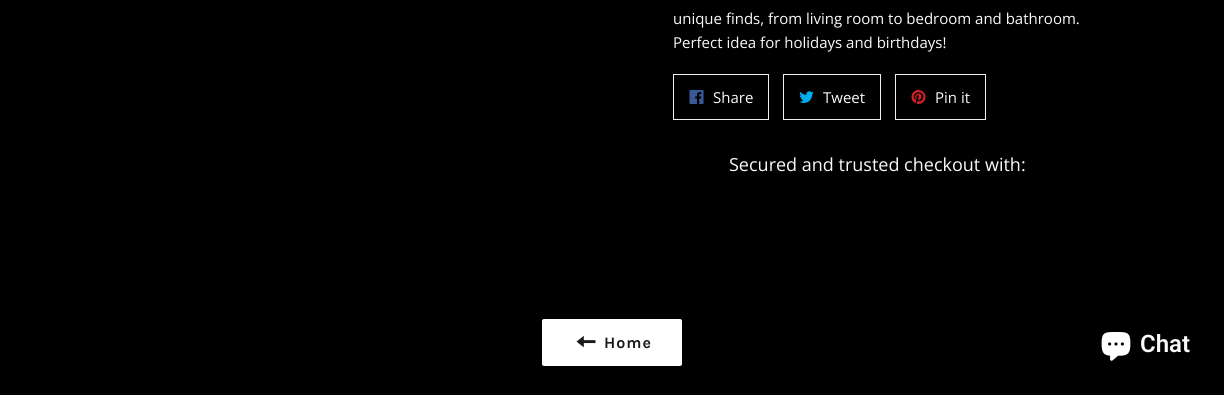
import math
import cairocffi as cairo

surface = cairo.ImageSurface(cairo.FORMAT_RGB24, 1224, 395)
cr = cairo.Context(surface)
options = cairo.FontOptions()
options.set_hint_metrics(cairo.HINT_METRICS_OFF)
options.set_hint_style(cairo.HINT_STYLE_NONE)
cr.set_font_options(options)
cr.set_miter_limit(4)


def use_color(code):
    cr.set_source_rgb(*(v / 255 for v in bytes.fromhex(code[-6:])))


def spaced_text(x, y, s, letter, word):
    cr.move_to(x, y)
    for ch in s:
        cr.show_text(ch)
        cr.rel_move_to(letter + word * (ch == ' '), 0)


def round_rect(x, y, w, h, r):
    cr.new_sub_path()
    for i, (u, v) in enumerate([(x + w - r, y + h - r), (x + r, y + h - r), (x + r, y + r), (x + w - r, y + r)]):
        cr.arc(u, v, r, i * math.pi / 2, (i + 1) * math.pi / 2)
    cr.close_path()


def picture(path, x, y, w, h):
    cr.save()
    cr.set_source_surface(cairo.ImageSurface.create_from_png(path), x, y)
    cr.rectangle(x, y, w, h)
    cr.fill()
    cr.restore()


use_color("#000000")
cr.paint()
cr.select_font_face("Open Sans")
cr.set_font_size(15)
use_color("#fafafa")
cr.move_to(673, 24)
cr.show_text("unique finds, from living room to bedroom and bathroom.")
cr.move_to(673, 48)
cr.show_text("Perfect idea for holidays and birthdays!")
cr.rectangle(673.5, 74.5, 95, 45)
use_color("#eeeeee")
cr.set_line_width(1)
cr.stroke()
picture("img1.png", 689, 90, 15, 14)
use_color("#fafafa")
cr.move_to(713, 103)
cr.show_text("Share")
cr.rectangle(783.5, 74.5, 97, 45)
use_color("#eeeeee")
cr.stroke()
picture("img2.png", 799, 91, 15, 12)
use_color("#fafafa")
cr.move_to(823, 103)
cr.show_text("Tweet")
cr.rectangle(895.5, 74.5, 90, 45)
use_color("#eeeeee")
cr.stroke()
picture("img3.png", 911, 90, 15, 14)
use_color("#fafafa")
cr.move_to(935, 103)
cr.show_text("Pin it")
cr.set_font_size(18)
cr.move_to(729, 171)
cr.show_text("Secured and trusted checkout with:")
use_color("#ffffff")
round_rect(542, 319, 140, 47, 2)
cr.fill()
picture("img4.png", 576, 335, 20, 13)
cr.select_font_face("Karla", cairo.FONT_SLANT_NORMAL, cairo.FONT_WEIGHT_BOLD)
cr.set_font_size(16)
use_color("#1a1a1a")
spaced_text(604, 348, "Home", 1, 0)
picture("img5.png", 1101, 332, 30, 29)
cr.select_font_face("Roboto SemiBold")
cr.set_font_size(24)
use_color("#fafafa")
cr.move_to(1140, 352)
cr.show_text("Chat")
surface.write_to_png("result.png")
